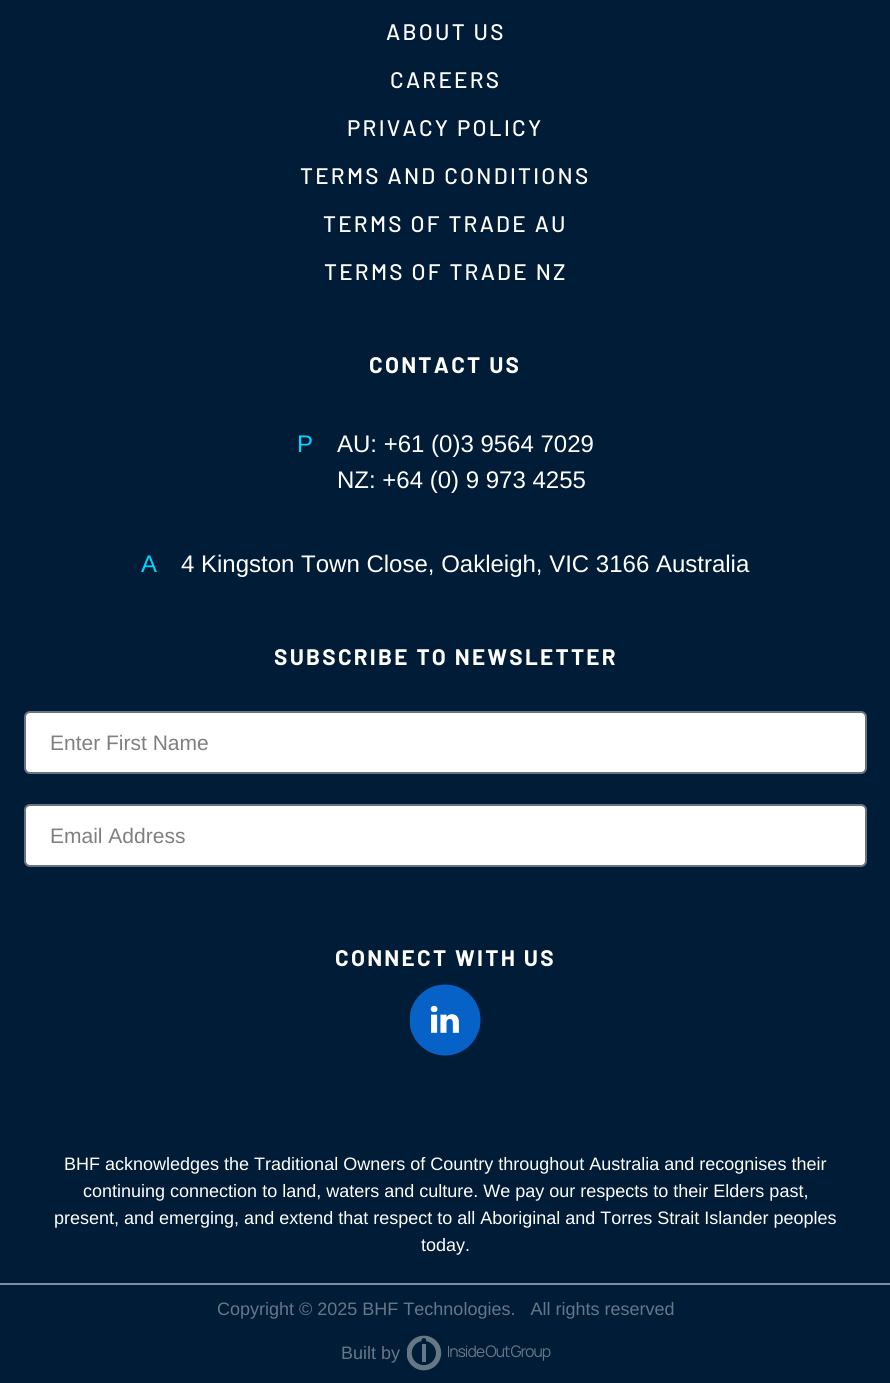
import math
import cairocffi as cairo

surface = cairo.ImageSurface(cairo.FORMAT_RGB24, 890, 1383)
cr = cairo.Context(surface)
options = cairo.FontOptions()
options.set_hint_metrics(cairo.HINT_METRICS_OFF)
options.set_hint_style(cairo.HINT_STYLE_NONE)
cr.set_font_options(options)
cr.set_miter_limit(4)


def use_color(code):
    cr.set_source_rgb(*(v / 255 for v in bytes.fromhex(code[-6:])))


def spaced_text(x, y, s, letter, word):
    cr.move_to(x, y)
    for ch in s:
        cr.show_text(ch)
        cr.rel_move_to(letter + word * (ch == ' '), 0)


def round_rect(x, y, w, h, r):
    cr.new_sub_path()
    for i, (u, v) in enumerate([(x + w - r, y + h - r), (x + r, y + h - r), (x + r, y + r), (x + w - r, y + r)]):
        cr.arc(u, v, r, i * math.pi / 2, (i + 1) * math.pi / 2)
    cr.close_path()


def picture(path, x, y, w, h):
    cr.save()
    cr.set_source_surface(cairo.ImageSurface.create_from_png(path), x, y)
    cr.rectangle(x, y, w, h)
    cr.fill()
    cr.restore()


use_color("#001c36")
cr.paint()
cr.select_font_face("Barlow Medium")
cr.set_font_size(22.5)
use_color("#ffffff")
spaced_text(386, 40, "ABOUT US", 2.25, 0)
spaced_text(390, 88, "CAREERS", 2.25, 0)
spaced_text(347, 136, "PRIVACY POLICY", 2.25, 0)
spaced_text(300, 184, "TERMS AND CONDITIONS", 2.25, 0)
spaced_text(323, 232, "TERMS OF TRADE AU", 2.25, 0)
spaced_text(324, 280, "TERMS OF TRADE NZ", 2.25, 0)
cr.select_font_face("Barlow", cairo.FONT_SLANT_NORMAL, cairo.FONT_WEIGHT_BOLD)
spaced_text(369, 373, "CONTACT US", 2.25, 0)
cr.select_font_face("Liberation Sans")
cr.set_font_size(24)
use_color("#00d6ff")
cr.move_to(297, 452)
cr.show_text("P")
use_color("#ffffff")
cr.move_to(337, 452)
cr.show_text("AU: +61 (0)3 9564 7029")
cr.move_to(337, 488)
cr.show_text("NZ: +64 (0) 9 973 4255")
use_color("#00d6ff")
cr.move_to(141, 572)
cr.show_text("A")
use_color("#ffffff")
cr.move_to(181, 572)
cr.show_text("4 Kingston Town Close, Oakleigh, VIC 3166 Australia")
cr.select_font_face("Barlow", cairo.FONT_SLANT_NORMAL, cairo.FONT_WEIGHT_BOLD)
cr.set_font_size(22.5)
spaced_text(274, 665, "SUBSCRIBE TO NEWSLETTER", 2.25, 0)
round_rect(25, 712, 841, 61, 5)
cr.fill_preserve()
use_color("#6b7280")
cr.stroke()
cr.select_font_face("Liberation Sans")
cr.set_font_size(21)
use_color("#7f7f7f")
cr.move_to(50, 750)
cr.show_text("Enter First Name")
use_color("#ffffff")
round_rect(25, 805, 841, 61, 5)
cr.fill_preserve()
use_color("#6b7280")
cr.stroke()
use_color("#7f7f7f")
cr.move_to(50, 843)
cr.show_text("Email Address")
cr.select_font_face("Barlow", cairo.FONT_SLANT_NORMAL, cairo.FONT_WEIGHT_BOLD)
cr.set_font_size(22.5)
use_color("#ffffff")
spaced_text(335, 966, "CONNECT WITH US", 2.25, 0)
picture("img1.png", 410, 984, 71, 72)
cr.select_font_face("Liberation Sans")
cr.set_font_size(18)
cr.move_to(64, 1170)
cr.show_text("BHF acknowledges the Traditional Owners of Country throughout Australia and recognises their")
cr.move_to(83, 1197)
cr.show_text("continuing connection to land, waters and culture. We pay our respects to their Elders past,")
cr.move_to(54, 1224)
cr.show_text("present, and emerging, and extend that respect to all Aboriginal and Torres Strait Islander peoples")
cr.move_to(421, 1251)
cr.show_text("today.")
use_color("#808e9b")
cr.rectangle(0, 1283, 890, 2)
cr.fill()
use_color("#667786")
cr.move_to(217, 1315)
cr.show_text("Copyright © 2025 BHF Technologies.   All rights reserved")
cr.move_to(341, 1359)
cr.show_text("Built by")
picture("img2.png", 407, 1335, 144, 36)
surface.write_to_png("result.png")
